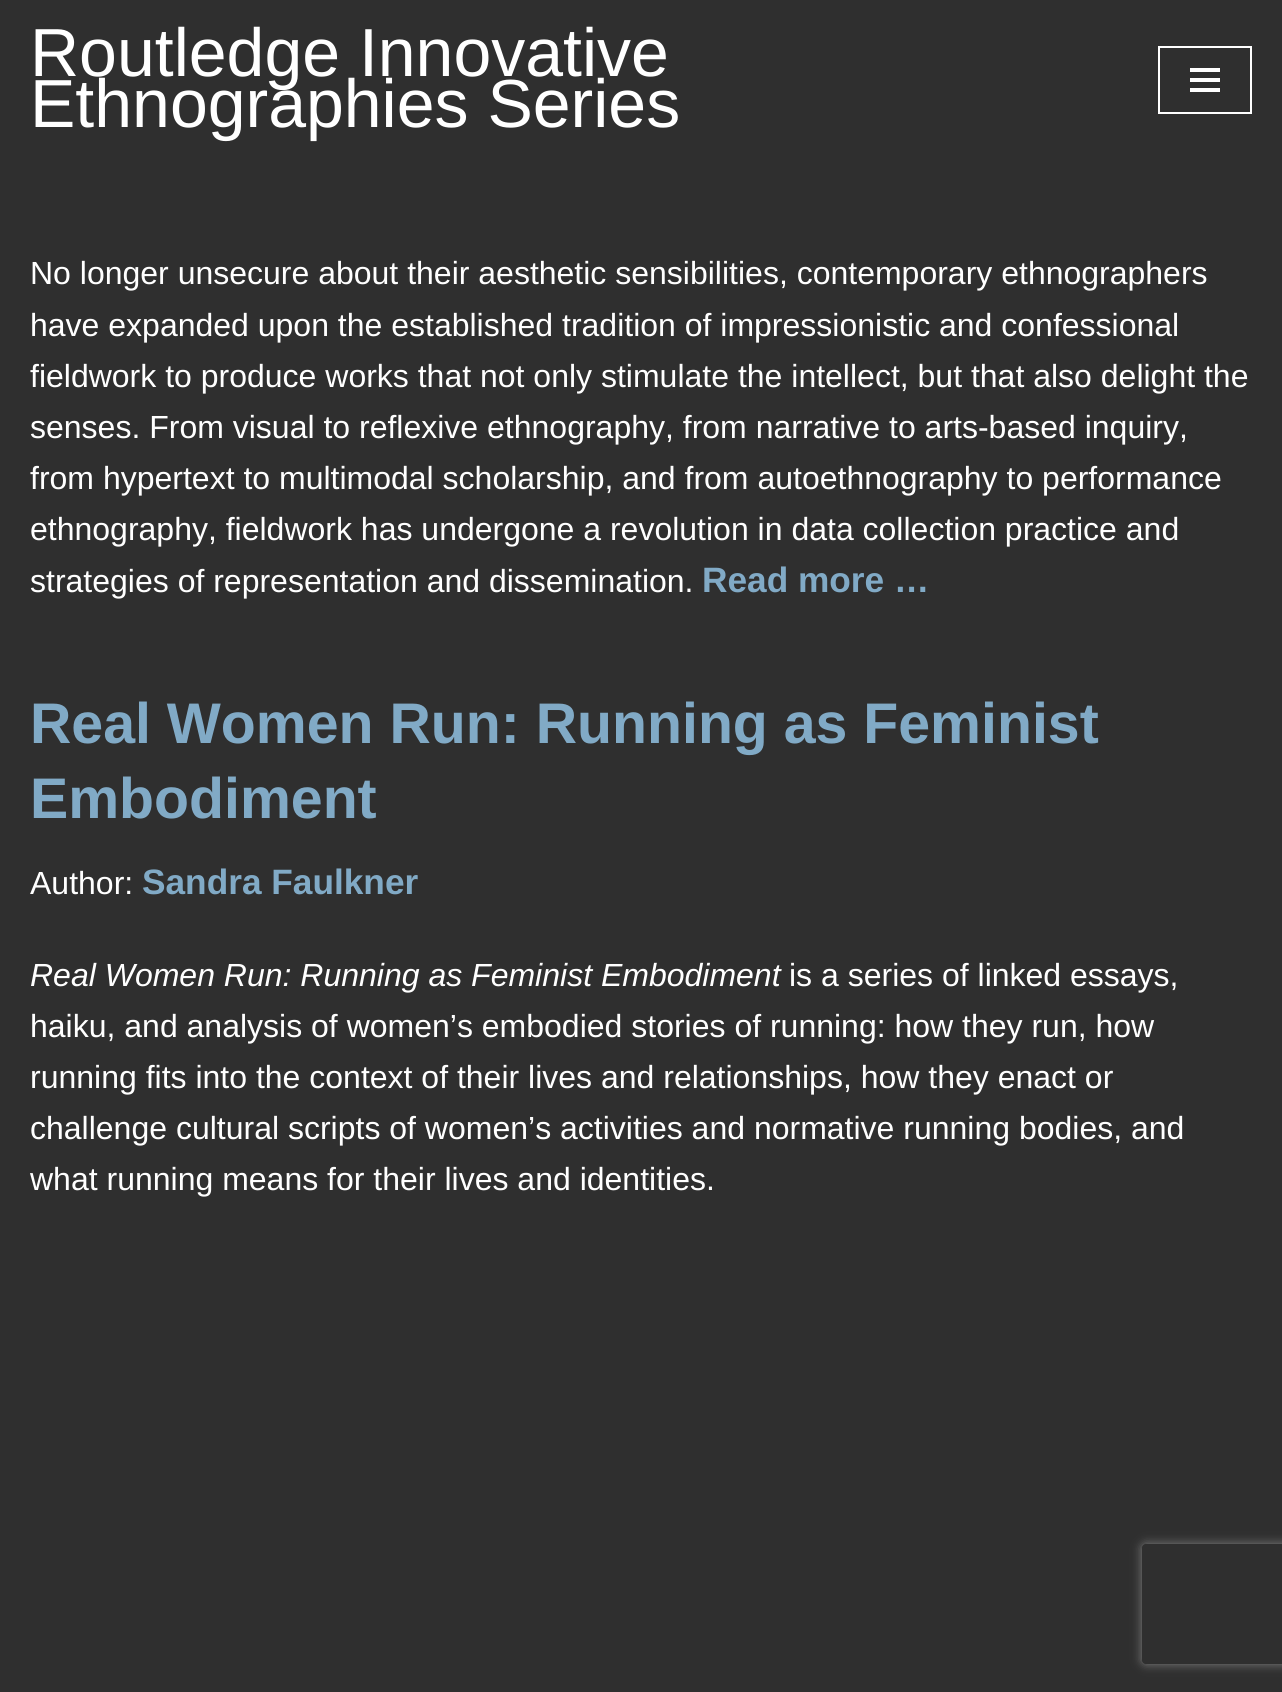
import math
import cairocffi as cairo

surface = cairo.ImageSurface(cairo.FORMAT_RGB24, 1282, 1692)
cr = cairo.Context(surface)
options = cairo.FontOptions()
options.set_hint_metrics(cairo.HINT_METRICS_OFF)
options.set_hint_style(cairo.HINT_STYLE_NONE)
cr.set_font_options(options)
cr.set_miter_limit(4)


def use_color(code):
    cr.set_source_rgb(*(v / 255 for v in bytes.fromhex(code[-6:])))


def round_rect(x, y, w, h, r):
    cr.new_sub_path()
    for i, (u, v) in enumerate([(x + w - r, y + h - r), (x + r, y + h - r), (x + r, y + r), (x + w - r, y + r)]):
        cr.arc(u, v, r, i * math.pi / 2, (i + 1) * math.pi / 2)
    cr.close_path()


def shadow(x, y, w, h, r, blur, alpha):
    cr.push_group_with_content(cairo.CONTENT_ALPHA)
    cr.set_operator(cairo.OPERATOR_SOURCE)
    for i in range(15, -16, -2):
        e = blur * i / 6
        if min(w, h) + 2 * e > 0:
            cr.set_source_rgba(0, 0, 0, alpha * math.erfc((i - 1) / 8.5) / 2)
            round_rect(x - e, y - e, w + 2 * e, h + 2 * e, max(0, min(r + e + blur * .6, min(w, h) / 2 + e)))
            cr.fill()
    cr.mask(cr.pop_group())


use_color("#2f2f2f")
cr.paint()
cr.select_font_face("Liberation Sans")
cr.set_font_size(68)
use_color("#ffffff")
cr.move_to(30, 76)
cr.show_text("Routledge Innovative")
cr.move_to(30, 127)
cr.show_text("Ethnographies Series")
cr.rectangle(1159, 47, 92, 66)
cr.stroke()
cr.rectangle(1190, 68, 30, 4)
cr.fill()
cr.rectangle(1190, 78, 30, 4)
cr.fill()
cr.rectangle(1190, 88, 30, 4)
cr.fill()
cr.set_font_size(32)
cr.move_to(30, 284)
cr.show_text("No longer unsecure about their aesthetic sensibilities, contemporary ethnographers")
cr.move_to(30, 336)
cr.show_text("have expanded upon the established tradition of impressionistic and confessional")
cr.move_to(30, 387)
cr.show_text("fieldwork to produce works that not only stimulate the intellect, but that also delight the")
cr.move_to(30, 438)
cr.show_text("senses. From visual to reflexive ethnography, from narrative to arts-based inquiry,")
cr.move_to(30, 489)
cr.show_text("from hypertext to multimodal scholarship, and from autoethnography to performance")
cr.move_to(30, 540)
cr.show_text("ethnography, fieldwork has undergone a revolution in data collection practice and")
cr.move_to(30, 592)
cr.show_text("strategies of representation and dissemination.")
cr.select_font_face("Liberation Sans", cairo.FONT_SLANT_NORMAL, cairo.FONT_WEIGHT_BOLD)
cr.set_font_size(35.25)
use_color("#81aac6")
cr.move_to(702, 592)
cr.show_text("Read more …")
cr.set_font_size(57.25)
cr.move_to(30, 743)
cr.show_text("Real Women Run: Running as Feminist")
cr.move_to(30, 818)
cr.show_text("Embodiment")
cr.select_font_face("Liberation Sans")
cr.set_font_size(32)
use_color("#ffffff")
cr.move_to(30, 894)
cr.show_text("Author:")
cr.select_font_face("Liberation Sans", cairo.FONT_SLANT_NORMAL, cairo.FONT_WEIGHT_BOLD)
cr.set_font_size(35.25)
use_color("#81aac6")
cr.move_to(142, 894)
cr.show_text("Sandra Faulkner")
cr.select_font_face("Liberation Sans", cairo.FONT_SLANT_ITALIC)
cr.set_font_size(32)
use_color("#ffffff")
cr.move_to(30, 986)
cr.show_text("Real Women Run: Running as Feminist Embodiment")
cr.select_font_face("Liberation Sans")
cr.move_to(789, 986)
cr.show_text("is a series of linked essays,")
cr.move_to(30, 1037)
cr.show_text("haiku, and analysis of women’s embodied stories of running: how they run, how")
cr.move_to(30, 1088)
cr.show_text("running fits into the context of their lives and relationships, how they enact or")
cr.move_to(30, 1139)
cr.show_text("challenge cultural scripts of women’s activities and normative running bodies, and")
cr.move_to(30, 1190)
cr.show_text("what running means for their lives and identities.")
cr.save()
cr.set_fill_rule(cairo.FILL_RULE_EVEN_ODD)
cr.new_path()
cr.move_to(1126, 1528)
cr.line_to(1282, 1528)
cr.line_to(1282, 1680)
cr.line_to(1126, 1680)
cr.close_path()
cr.move_to(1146, 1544)
cr.line_to(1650, 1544)
cr.curve_to(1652, 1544, 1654, 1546, 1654, 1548)
cr.line_to(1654, 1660)
cr.curve_to(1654, 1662, 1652, 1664, 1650, 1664)
cr.line_to(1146, 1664)
cr.curve_to(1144, 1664, 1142, 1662, 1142, 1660)
cr.line_to(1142, 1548)
cr.curve_to(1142, 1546, 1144, 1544, 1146, 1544)
cr.close_path()
cr.clip()
use_color("#808080")
shadow(1142, 1544, 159, 120, 4, 5, 1)
cr.restore()
surface.write_to_png("result.png")
